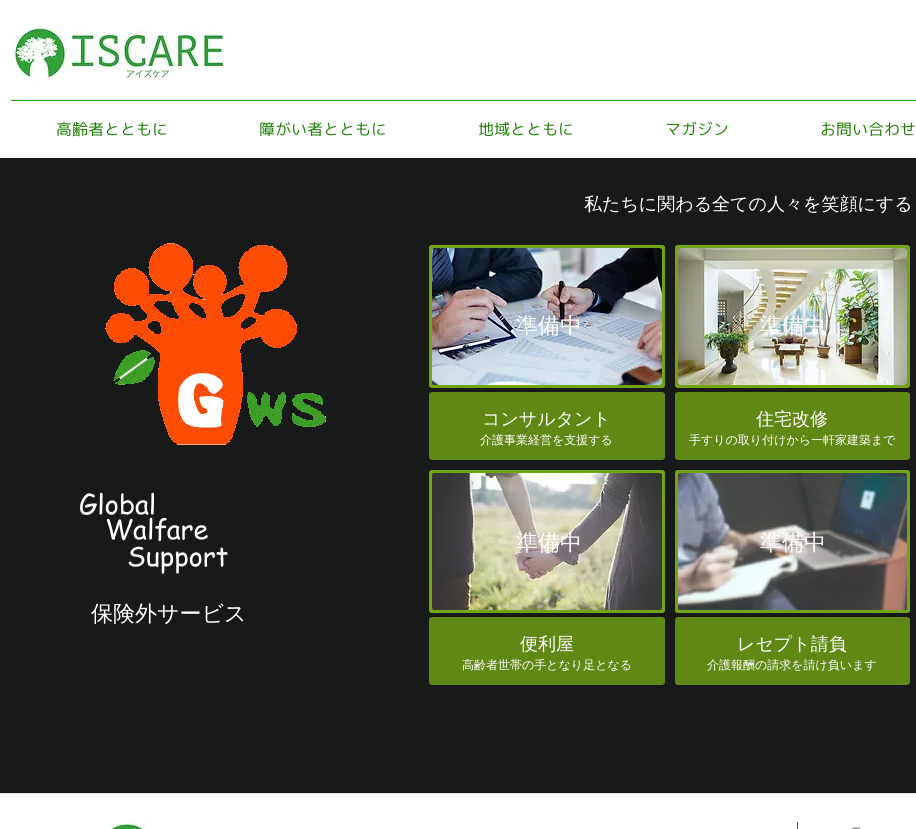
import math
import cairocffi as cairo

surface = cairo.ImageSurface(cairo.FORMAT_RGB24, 916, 829)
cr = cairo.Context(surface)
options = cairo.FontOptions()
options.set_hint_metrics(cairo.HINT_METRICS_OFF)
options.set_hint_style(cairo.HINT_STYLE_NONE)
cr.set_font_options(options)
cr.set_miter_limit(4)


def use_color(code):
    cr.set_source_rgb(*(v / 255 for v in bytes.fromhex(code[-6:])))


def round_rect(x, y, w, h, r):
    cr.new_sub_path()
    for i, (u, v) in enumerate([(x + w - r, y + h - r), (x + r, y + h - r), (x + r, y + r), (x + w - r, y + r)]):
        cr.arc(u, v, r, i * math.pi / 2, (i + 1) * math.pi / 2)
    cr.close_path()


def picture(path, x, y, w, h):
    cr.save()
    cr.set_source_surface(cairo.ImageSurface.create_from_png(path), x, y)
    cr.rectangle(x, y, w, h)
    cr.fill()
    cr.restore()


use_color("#ffffff")
cr.paint()
picture("img1.png", 11, 28, 216, 56)
use_color("#28a808")
cr.rectangle(11, 100, 905, 1)
cr.fill()
cr.select_font_face("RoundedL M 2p")
cr.set_font_size(16)
use_color("#208008")
cr.move_to(56, 135)
cr.show_text("高齢者とともに")
cr.move_to(259, 135)
cr.show_text("障がい者とともに")
cr.move_to(478, 135)
cr.show_text("地域とともに")
cr.move_to(665, 135)
cr.show_text("マガジン")
cr.move_to(820, 135)
cr.show_text("お問い合わせ")
use_color("#181919")
cr.rectangle(0, 158, 916, 635)
cr.fill()
cr.select_font_face("WenQuanYi Zen Hei Medium")
cr.set_font_size(18)
use_color("#ffffff")
cr.move_to(584, 210)
cr.show_text("私たちに関わる全ての人々を笑顔にする")
picture("img2.png", 105, 243, 221, 202)
use_color("#608815")
round_rect(429, 245, 236, 143, 3)
cr.fill()
round_rect(430.5, 246.5, 233, 140, 1.5)
cr.set_source_rgba(0.475, 0.686, 0.075, 0.74)
cr.set_line_width(3)
cr.stroke()
picture("img3.png", 432, 248, 230, 137)
cr.set_font_size(22)
use_color("#ffffff")
cr.move_to(516, 333)
cr.show_text("準備中")
use_color("#608815")
round_rect(675, 245, 235, 143, 3)
cr.fill()
round_rect(676.5, 246.5, 232, 140, 1.5)
cr.set_source_rgba(0.475, 0.686, 0.075, 0.74)
cr.stroke()
picture("img4.png", 678, 248, 229, 137)
use_color("#ffffff")
cr.move_to(760, 333)
cr.show_text("準備中")
use_color("#608815")
round_rect(429, 392, 236, 68, 3)
cr.fill()
cr.set_font_size(18)
use_color("#ffffff")
cr.move_to(482, 425)
cr.show_text("コンサルタント")
cr.set_font_size(12)
cr.move_to(480, 444)
cr.show_text("介護事業経営を支援する")
use_color("#608815")
round_rect(675, 392, 235, 68, 3)
cr.fill()
cr.set_font_size(18)
use_color("#ffffff")
cr.move_to(756, 425)
cr.show_text("住宅改修")
cr.set_font_size(12)
cr.move_to(689, 444)
cr.show_text("手すりの取り付けから一軒家建築まで")
use_color("#608815")
round_rect(429, 470, 236, 143, 3)
cr.fill()
round_rect(430.5, 471.5, 233, 140, 1.5)
cr.set_source_rgba(0.475, 0.686, 0.075, 0.74)
cr.stroke()
picture("img5.png", 432, 473, 230, 137)
use_color("#608815")
round_rect(429, 617, 236, 68, 3)
cr.fill()
cr.set_font_size(18)
use_color("#ffffff")
cr.move_to(520, 650)
cr.show_text("便利屋")
cr.save()
cr.rectangle(443, 657, 208, 14)
cr.clip()
cr.set_font_size(12)
cr.move_to(462, 669)
cr.show_text("高齢者世帯の手となり足となる")
cr.restore()
use_color("#608815")
round_rect(675, 470, 235, 143, 3)
cr.fill()
round_rect(676.5, 471.5, 232, 140, 1.5)
cr.set_source_rgba(0.475, 0.686, 0.075, 0.74)
cr.stroke()
picture("img6.png", 678, 473, 229, 137)
use_color("#608815")
round_rect(675, 617, 235, 68, 3)
cr.fill()
use_color("#ffffff")
cr.move_to(737, 650)
cr.show_text("レセプト請負")
cr.set_font_size(12)
cr.move_to(707, 669)
cr.show_text("介護報酬の請求を請け負います")
cr.set_font_size(22)
cr.move_to(516, 550)
cr.show_text("準備中")
cr.move_to(760, 550)
cr.show_text("準備中")
cr.select_font_face("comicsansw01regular")
cr.set_font_size(27)
cr.move_to(79, 514)
cr.show_text("Global")
cr.move_to(105, 539)
cr.show_text("Walfare")
cr.move_to(127, 566)
cr.show_text("Support")
cr.select_font_face("WenQuanYi Zen Hei Medium")
cr.set_font_size(22)
cr.move_to(91, 621)
cr.show_text("保険外サービス")
use_color("#e3e3e3")
cr.rectangle(0, 793, 916, 1)
cr.fill()
picture("img7.png", 109, 822, 42, 7)
use_color("#26800f")
cr.rectangle(797, 822, 1, 7)
cr.fill()
picture("img8.png", 851, 827, 10, 2)
surface.write_to_png("result.png")
